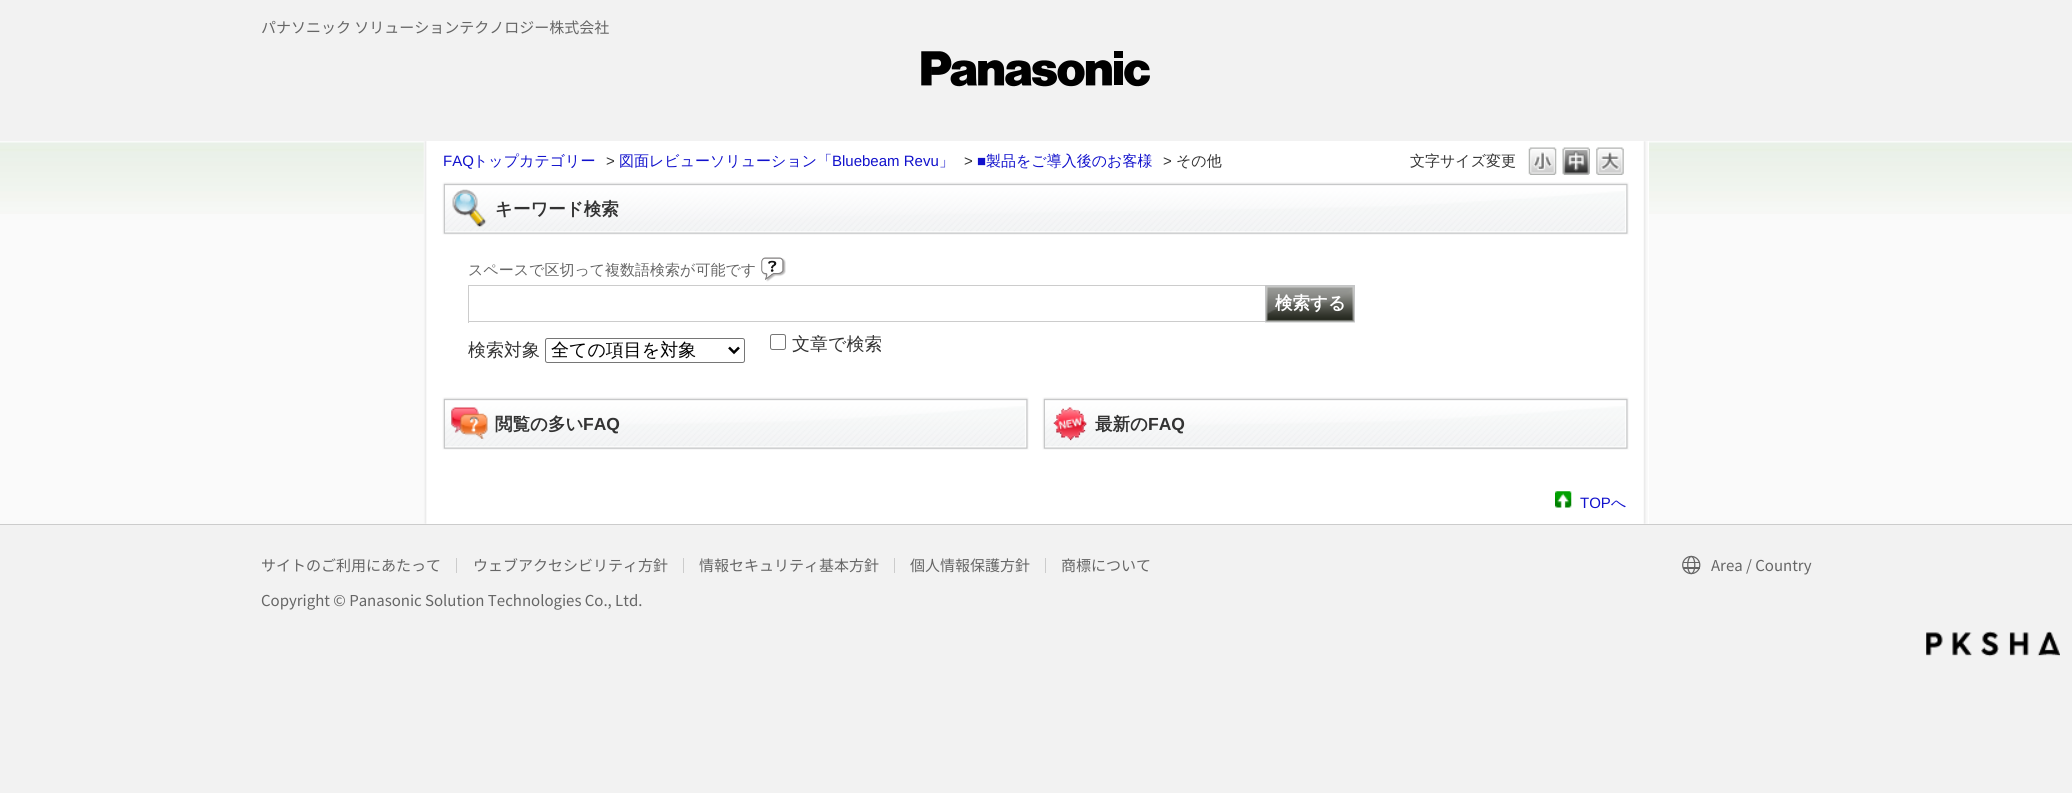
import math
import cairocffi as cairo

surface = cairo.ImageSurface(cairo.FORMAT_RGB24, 2072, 793)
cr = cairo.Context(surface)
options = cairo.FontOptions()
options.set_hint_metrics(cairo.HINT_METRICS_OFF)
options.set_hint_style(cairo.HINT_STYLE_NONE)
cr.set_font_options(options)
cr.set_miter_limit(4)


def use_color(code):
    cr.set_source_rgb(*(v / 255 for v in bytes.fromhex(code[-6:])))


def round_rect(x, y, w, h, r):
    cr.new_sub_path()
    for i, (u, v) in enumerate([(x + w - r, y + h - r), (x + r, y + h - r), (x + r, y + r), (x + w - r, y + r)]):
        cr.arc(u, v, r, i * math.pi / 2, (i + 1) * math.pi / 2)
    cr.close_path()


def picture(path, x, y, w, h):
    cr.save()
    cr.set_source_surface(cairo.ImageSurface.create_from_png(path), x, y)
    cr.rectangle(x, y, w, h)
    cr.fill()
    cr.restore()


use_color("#f2f2f2")
cr.paint()
cr.select_font_face("Noto Sans JP")
cr.set_font_size(15)
use_color("#666666")
cr.move_to(261, 33)
cr.show_text("パナソニック ソリューションテクノロジー株式会社")
picture("img1.png", 921, 51, 229, 36)
use_color("#fafafa")
cr.rectangle(0, 141, 2072, 383)
cr.fill()
picture("img2.png", 0, 142, 2072, 72)
use_color("#ffffff")
cr.rectangle(424, 141, 1225, 383)
cr.fill()
picture("img3.png", 1643, 141, 5, 383)
picture("img4.png", 423, 141, 4, 383)
cr.select_font_face("Liberation Sans")
use_color("#1111cc")
cr.move_to(443, 166)
cr.show_text("FAQ")
cr.select_font_face("WenQuanYi Zen Hei Medium")
cr.move_to(473, 166)
cr.show_text("トップカテゴリー")
cr.select_font_face("Liberation Sans")
use_color("#333333")
cr.move_to(606, 166)
cr.show_text(">")
cr.select_font_face("WenQuanYi Zen Hei Medium")
use_color("#1111cc")
cr.move_to(619, 166)
cr.show_text("図面レビューソリューション「")
cr.select_font_face("Liberation Sans")
cr.move_to(832, 166)
cr.show_text("Bluebeam Revu")
cr.select_font_face("WenQuanYi Zen Hei Medium")
cr.move_to(939, 166)
cr.show_text("」")
cr.select_font_face("Liberation Sans")
use_color("#333333")
cr.move_to(964, 166)
cr.show_text(">")
use_color("#1111cc")
cr.move_to(977, 166)
cr.show_text("■")
cr.select_font_face("WenQuanYi Zen Hei Medium")
cr.move_to(986, 166)
cr.show_text("製品をご導入後のお客様")
cr.select_font_face("Liberation Sans")
use_color("#333333")
cr.move_to(1163, 166)
cr.show_text(">")
cr.select_font_face("WenQuanYi Zen Hei Medium")
cr.move_to(1176, 166)
cr.show_text("その他")
cr.move_to(1410, 166)
cr.show_text("文字サイズ変更")
picture("img5.png", 1528, 147, 29, 28)
picture("img6.png", 1562, 147, 28, 28)
picture("img7.png", 1596, 147, 28, 28)
picture("img8.png", 442, 182, 3, 53)
picture("img9.png", 445, 182, 1184, 53)
picture("img10.png", 452, 189, 35, 38)
cr.select_font_face("WenQuanYi Zen Hei", cairo.FONT_SLANT_NORMAL, cairo.FONT_WEIGHT_BOLD)
cr.set_font_size(17.5)
cr.move_to(495, 215)
cr.show_text("キーワード検索")
cr.select_font_face("WenQuanYi Zen Hei Medium")
cr.set_font_size(15)
use_color("#666666")
cr.move_to(468, 275)
cr.show_text("スペースで区切って複数語検索が可能です")
picture("img11.png", 761, 257, 25, 25)
use_color("#cccccc")
cr.rectangle(468, 285, 797, 1)
cr.fill()
cr.rectangle(468, 321, 797, 1)
cr.fill()
cr.rectangle(468, 285, 1, 38)
cr.fill()
picture("img12.png", 1265, 285, 90, 38)
cr.select_font_face("WenQuanYi Zen Hei", cairo.FONT_SLANT_NORMAL, cairo.FONT_WEIGHT_BOLD)
cr.set_font_size(17.5)
use_color("#ffffff")
cr.move_to(1275, 309)
cr.show_text("検索する")
cr.select_font_face("WenQuanYi Zen Hei Medium")
cr.set_font_size(18)
use_color("#333333")
cr.move_to(468, 356)
cr.show_text("検索対象")
round_rect(545.5, 338.5, 199, 24, 2)
use_color("#767676")
cr.set_line_width(1)
cr.stroke()
cr.new_path()
cr.move_to(729, 347.5)
cr.line_to(734, 352.5)
cr.line_to(739, 347.5)
use_color("#000000")
cr.set_line_width(2.5)
cr.stroke()
cr.move_to(551, 356)
cr.show_text("全ての項目を対象")
round_rect(770.5, 334.5, 15, 15, 2)
use_color("#767676")
cr.set_line_width(1)
cr.stroke()
use_color("#333333")
cr.move_to(792, 350)
cr.show_text("文章で検索")
picture("img8.png", 442, 397, 3, 53)
picture("img13.png", 445, 397, 584, 53)
picture("img14.png", 451, 407, 37, 32)
cr.select_font_face("WenQuanYi Zen Hei", cairo.FONT_SLANT_NORMAL, cairo.FONT_WEIGHT_BOLD)
cr.set_font_size(17.5)
cr.move_to(495, 430)
cr.show_text("閲覧の多い")
cr.select_font_face("Liberation Sans", cairo.FONT_SLANT_NORMAL, cairo.FONT_WEIGHT_BOLD)
cr.move_to(583, 430)
cr.show_text("FAQ")
picture("img8.png", 1042, 397, 3, 53)
picture("img13.png", 1045, 397, 584, 53)
picture("img15.png", 1053, 407, 34, 34)
cr.select_font_face("WenQuanYi Zen Hei", cairo.FONT_SLANT_NORMAL, cairo.FONT_WEIGHT_BOLD)
cr.move_to(1095, 430)
cr.show_text("最新の")
cr.select_font_face("Liberation Sans", cairo.FONT_SLANT_NORMAL, cairo.FONT_WEIGHT_BOLD)
cr.move_to(1148, 430)
cr.show_text("FAQ")
picture("img16.png", 1555, 491, 17, 17)
cr.select_font_face("Liberation Sans")
cr.set_font_size(15)
use_color("#1111cc")
cr.move_to(1580, 508)
cr.show_text("TOP")
cr.select_font_face("WenQuanYi Zen Hei Medium")
cr.move_to(1611, 508)
cr.show_text("へ")
use_color("#cccccc")
cr.rectangle(0, 524, 2072, 1)
cr.fill()
cr.select_font_face("Noto Sans JP")
use_color("#666666")
cr.move_to(261, 571)
cr.show_text("サイトのご利用にあたって")
use_color("#cccccc")
cr.rectangle(456, 558, 1, 15)
cr.fill()
use_color("#666666")
cr.move_to(473, 571)
cr.show_text("ウェブアクセシビリティ方針")
use_color("#cccccc")
cr.rectangle(683, 558, 1, 15)
cr.fill()
use_color("#666666")
cr.move_to(699, 571)
cr.show_text("情報セキュリティ基本方針")
use_color("#cccccc")
cr.rectangle(894, 558, 1, 15)
cr.fill()
use_color("#666666")
cr.move_to(910, 571)
cr.show_text("個人情報保護方針")
use_color("#cccccc")
cr.rectangle(1045, 558, 1, 15)
cr.fill()
use_color("#666666")
cr.move_to(1061, 571)
cr.show_text("商標について")
picture("img17.png", 1682, 555, 19, 20)
cr.move_to(1711, 571)
cr.show_text("Area / Country")
cr.move_to(261, 606)
cr.show_text("Copyright © Panasonic Solution Technologies Co., Ltd.")
picture("img18.png", 1926, 631, 134, 26)
surface.write_to_png("result.png")
